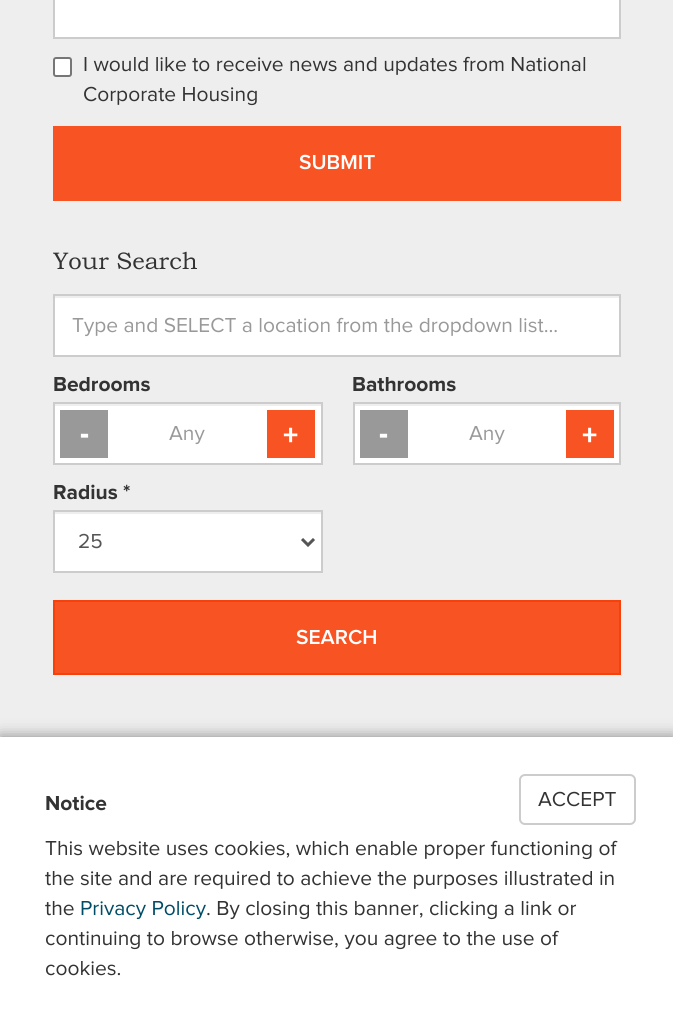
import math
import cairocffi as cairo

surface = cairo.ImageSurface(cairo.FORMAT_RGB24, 673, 1029)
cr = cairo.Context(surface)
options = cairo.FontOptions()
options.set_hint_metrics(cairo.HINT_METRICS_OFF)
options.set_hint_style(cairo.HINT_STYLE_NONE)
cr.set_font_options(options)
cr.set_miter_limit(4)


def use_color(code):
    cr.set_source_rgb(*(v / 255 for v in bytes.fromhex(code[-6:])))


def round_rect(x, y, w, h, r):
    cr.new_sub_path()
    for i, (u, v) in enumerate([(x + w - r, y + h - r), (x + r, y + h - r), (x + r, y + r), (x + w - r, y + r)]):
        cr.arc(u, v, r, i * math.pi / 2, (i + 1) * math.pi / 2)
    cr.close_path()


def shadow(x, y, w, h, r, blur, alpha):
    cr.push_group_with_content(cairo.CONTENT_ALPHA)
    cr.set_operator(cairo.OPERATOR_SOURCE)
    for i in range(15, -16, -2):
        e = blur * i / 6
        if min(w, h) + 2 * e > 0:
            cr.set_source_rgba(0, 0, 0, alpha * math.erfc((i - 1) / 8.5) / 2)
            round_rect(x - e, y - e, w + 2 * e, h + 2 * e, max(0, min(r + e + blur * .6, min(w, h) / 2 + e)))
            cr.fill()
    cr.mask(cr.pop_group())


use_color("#eeeeee")
cr.paint()
use_color("#ffffff")
cr.rectangle(54, -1, 566, 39)
cr.fill_preserve()
use_color("#cccccc")
cr.stroke()
use_color("#ffffff")
round_rect(54, 58, 17, 18, 2)
cr.fill_preserve()
use_color("#767676")
cr.stroke()
cr.select_font_face("Proxima Nova")
cr.set_font_size(21)
use_color("#333333")
cr.move_to(83, 71)
cr.show_text("I would like to receive news and updates from National")
cr.move_to(83, 101)
cr.show_text("Corporate Housing")
use_color("#f85323")
cr.rectangle(53, 126, 568, 75)
cr.fill()
cr.select_font_face("Proxima Nova SemiBold")
use_color("#ffffff")
cr.move_to(299, 169)
cr.show_text("SUBMIT")
cr.select_font_face("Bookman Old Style")
cr.set_font_size(24)
use_color("#333333")
cr.move_to(53, 269)
cr.show_text("Your Search")
use_color("#ffffff")
cr.rectangle(55, 298, 564, 57)
cr.fill()
cr.rectangle(54, 295, 566, 61)
use_color("#cccccc")
cr.stroke()
cr.select_font_face("Proxima Nova")
cr.set_font_size(21)
use_color("#999999")
cr.move_to(72, 332)
cr.show_text("Type and SELECT a location from the dropdown list...")
cr.select_font_face("Proxima Nova", cairo.FONT_SLANT_NORMAL, cairo.FONT_WEIGHT_BOLD)
use_color("#333333")
cr.move_to(53, 391)
cr.show_text("Bedrooms")
use_color("#ffffff")
cr.rectangle(55, 406, 266, 57)
cr.fill()
cr.rectangle(54, 403, 268, 61)
use_color("#cccccc")
cr.stroke()
use_color("#999999")
cr.rectangle(60, 410, 48, 48)
cr.fill()
cr.select_font_face("Proxima Nova ExtraBold")
cr.set_font_size(30)
use_color("#ffffff")
cr.move_to(80, 443)
cr.show_text("-")
cr.select_font_face("Proxima Nova")
cr.set_font_size(21)
use_color("#999999")
cr.move_to(169, 440)
cr.show_text("Any")
use_color("#f85323")
cr.rectangle(267, 410, 48, 48)
cr.fill()
cr.select_font_face("Proxima Nova ExtraBold")
cr.set_font_size(30)
use_color("#ffffff")
cr.move_to(283, 445)
cr.show_text("+")
cr.select_font_face("Proxima Nova", cairo.FONT_SLANT_NORMAL, cairo.FONT_WEIGHT_BOLD)
cr.set_font_size(21)
use_color("#333333")
cr.move_to(352, 391)
cr.show_text("Bathrooms")
use_color("#ffffff")
cr.rectangle(355, 406, 264, 57)
cr.fill()
cr.rectangle(354, 403, 266, 61)
use_color("#cccccc")
cr.stroke()
use_color("#999999")
cr.rectangle(360, 410, 48, 48)
cr.fill()
cr.select_font_face("Proxima Nova ExtraBold")
cr.set_font_size(30)
use_color("#ffffff")
cr.move_to(379, 443)
cr.show_text("-")
cr.select_font_face("Proxima Nova")
cr.set_font_size(21)
use_color("#999999")
cr.move_to(469, 440)
cr.show_text("Any")
use_color("#f85323")
cr.rectangle(566, 410, 48, 48)
cr.fill()
cr.select_font_face("Proxima Nova ExtraBold")
cr.set_font_size(30)
use_color("#ffffff")
cr.move_to(582, 445)
cr.show_text("+")
cr.select_font_face("Proxima Nova", cairo.FONT_SLANT_NORMAL, cairo.FONT_WEIGHT_BOLD)
cr.set_font_size(21)
use_color("#333333")
cr.move_to(53, 499)
cr.show_text("Radius *")
use_color("#ffffff")
cr.rectangle(55, 514, 266, 57)
cr.fill()
cr.rectangle(54, 511, 268, 61)
use_color("#cccccc")
cr.stroke()
cr.new_path()
cr.move_to(302, 539)
cr.line_to(308, 545)
cr.line_to(314, 539)
use_color("#555555")
cr.set_line_width(3)
cr.stroke()
cr.select_font_face("Proxima Nova")
cr.move_to(78, 548)
cr.show_text("25")
use_color("#f85323")
cr.rectangle(54, 601, 566, 73)
cr.fill_preserve()
use_color("#f7400a")
cr.set_line_width(2)
cr.stroke()
cr.select_font_face("Proxima Nova SemiBold")
use_color("#ffffff")
cr.move_to(296, 644)
cr.show_text("SEARCH")
use_color("#000000")
shadow(0, 737, 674, 292, 0, 7.5, 0.45)
use_color("#ffffff")
cr.rectangle(0, 737, 673, 292)
cr.fill()
cr.select_font_face("Proxima Nova", cairo.FONT_SLANT_NORMAL, cairo.FONT_WEIGHT_BOLD)
use_color("#333333")
cr.move_to(45, 810)
cr.show_text("Notice")
round_rect(520, 775, 115, 49, 5)
use_color("#cccccc")
cr.stroke()
cr.select_font_face("Proxima Nova")
use_color("#333333")
cr.move_to(538, 806)
cr.show_text("ACCEPT")
cr.move_to(45, 855)
cr.show_text("This website uses cookies, which enable proper functioning of")
cr.move_to(45, 885)
cr.show_text("the site and are required to achieve the purposes illustrated in")
cr.move_to(45, 915)
cr.show_text("the")
use_color("#004c66")
cr.move_to(80, 915)
cr.show_text("Privacy Policy")
use_color("#333333")
cr.move_to(206, 915)
cr.show_text(". By closing this banner, clicking a link or")
cr.move_to(45, 945)
cr.show_text("continuing to browse otherwise, you agree to the use of")
cr.move_to(45, 975)
cr.show_text("cookies.")
surface.write_to_png("result.png")
